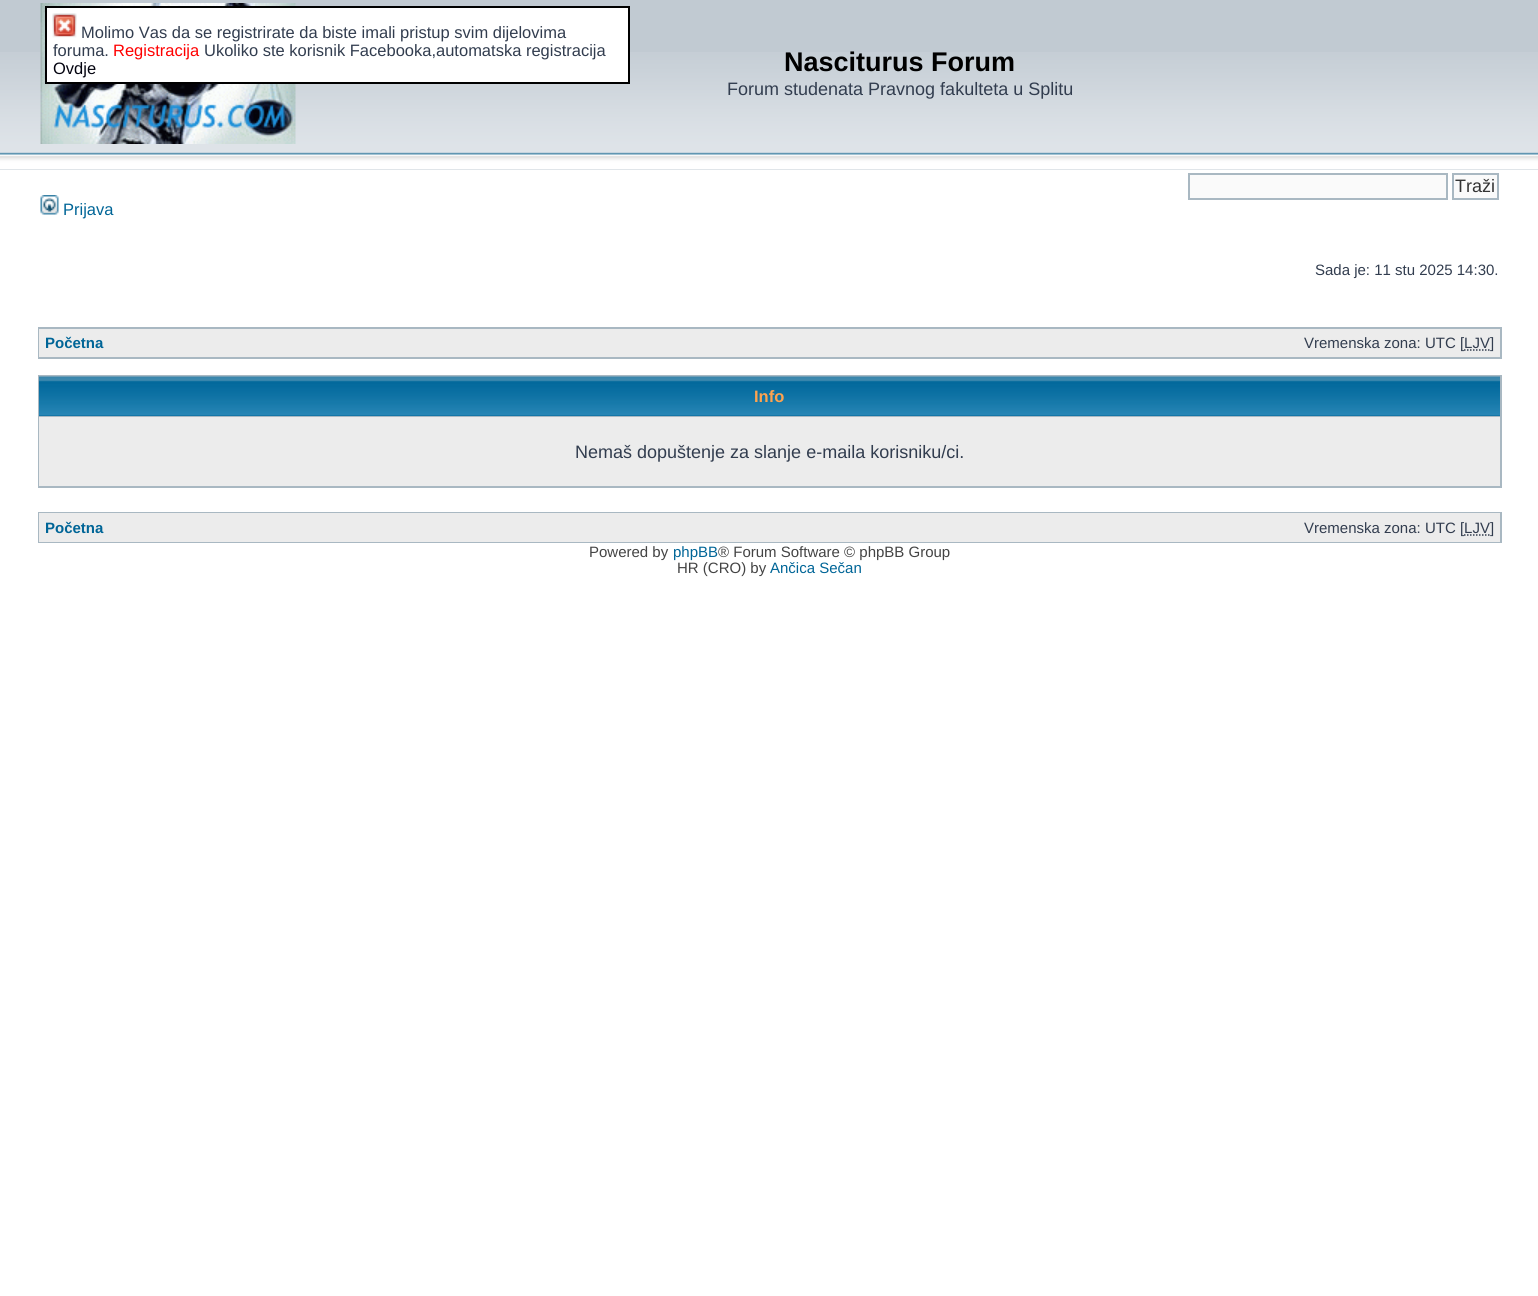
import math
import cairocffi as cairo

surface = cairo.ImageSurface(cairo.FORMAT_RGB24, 1538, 1296)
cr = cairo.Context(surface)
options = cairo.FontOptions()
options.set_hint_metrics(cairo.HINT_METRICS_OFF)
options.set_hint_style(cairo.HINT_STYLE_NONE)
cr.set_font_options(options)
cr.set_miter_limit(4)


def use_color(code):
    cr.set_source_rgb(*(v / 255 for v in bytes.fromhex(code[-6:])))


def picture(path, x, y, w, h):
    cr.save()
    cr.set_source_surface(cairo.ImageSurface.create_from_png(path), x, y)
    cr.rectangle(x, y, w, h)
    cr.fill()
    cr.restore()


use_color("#ffffff")
cr.paint()
use_color("#c1cad2")
cr.rectangle(0, 0, 1538, 170)
cr.fill()
picture("img3.png", 0, 52, 1538, 118)
picture("img4.png", 40, 3, 256, 141)
use_color("#ffffff")
cr.rectangle(46, 7, 583, 76)
cr.fill_preserve()
use_color("#000000")
cr.stroke()
picture("img1.png", 52, 13, 25, 25)
cr.select_font_face("Liberation Sans")
cr.set_font_size(16.5)
use_color("#323d4f")
cr.move_to(81, 38)
cr.show_text("Molimo Vas da se registrirate da biste imali pristup svim dijelovima")
cr.move_to(53, 56)
cr.show_text("foruma.")
use_color("#ff0000")
cr.move_to(113, 56)
cr.show_text("Registracija")
use_color("#323d4f")
cr.move_to(204, 56)
cr.show_text("Ukoliko ste korisnik Facebooka,automatska registracija")
use_color("#03030f")
cr.move_to(53, 74)
cr.show_text("Ovdje")
picture("img2.png", 40, 195, 19, 20)
use_color("#006597")
cr.move_to(63, 215)
cr.show_text("Prijava")
use_color("#fafafa")
cr.rectangle(1189, 174, 258, 25)
cr.fill_preserve()
use_color("#a9b8c2")
cr.stroke()
use_color("#fafafa")
cr.rectangle(1453, 174, 45, 25)
cr.fill_preserve()
use_color("#a9b8c2")
cr.stroke()
cr.set_font_size(18)
use_color("#333333")
cr.move_to(1455, 192)
cr.show_text("Traži")
cr.select_font_face("Liberation Sans", cairo.FONT_SLANT_NORMAL, cairo.FONT_WEIGHT_BOLD)
cr.set_font_size(27)
use_color("#000000")
cr.move_to(784, 71)
cr.show_text("Nasciturus Forum")
cr.select_font_face("Liberation Sans")
cr.set_font_size(18)
use_color("#323d4f")
cr.move_to(727, 95)
cr.show_text("Forum studenata Pravnog fakulteta u Splitu")
cr.set_font_size(15)
cr.move_to(1315, 275)
cr.show_text("Sada je: 11 stu 2025 14:30.")
use_color("#a9b8c2")
cr.rectangle(38, 327, 1464, 32)
cr.fill()
use_color("#ececec")
cr.rectangle(39, 329, 1461, 28)
cr.fill()
cr.select_font_face("Liberation Sans", cairo.FONT_SLANT_NORMAL, cairo.FONT_WEIGHT_BOLD)
use_color("#006597")
cr.move_to(45, 348)
cr.show_text("Početna")
cr.select_font_face("Liberation Sans")
use_color("#323d4f")
cr.move_to(1304, 348)
cr.show_text("Vremenska zona: UTC [LJV")
cr.new_path()
cr.move_to(1464, 350)
cr.line_to(1490, 350)
cr.set_line_width(1.5)
cr.set_dash([1.5, 1.5])
cr.stroke()
cr.move_to(1490, 348)
cr.show_text("]")
use_color("#a9b8c2")
cr.rectangle(38, 375, 1464, 113)
cr.fill()
use_color("#006699")
cr.rectangle(39, 415, 1461, 1)
cr.fill()
picture("img5.png", 39, 376, 1461, 40)
cr.select_font_face("Liberation Sans", cairo.FONT_SLANT_NORMAL, cairo.FONT_WEIGHT_BOLD)
cr.set_font_size(16.5)
use_color("#ffa34f")
cr.move_to(754, 402)
cr.show_text("Info")
use_color("#ececec")
cr.rectangle(39, 417, 1461, 69)
cr.fill()
cr.select_font_face("Liberation Sans")
cr.set_font_size(18)
use_color("#323d4f")
cr.move_to(575, 458)
cr.show_text("Nemaš dopuštenje za slanje e-maila korisniku/ci.")
use_color("#a9b8c2")
cr.rectangle(38, 512, 1464, 31)
cr.fill()
use_color("#ececec")
cr.rectangle(39, 513, 1461, 29)
cr.fill()
cr.select_font_face("Liberation Sans", cairo.FONT_SLANT_NORMAL, cairo.FONT_WEIGHT_BOLD)
cr.set_font_size(15)
use_color("#006597")
cr.move_to(45, 533)
cr.show_text("Početna")
cr.select_font_face("Liberation Sans")
use_color("#323d4f")
cr.move_to(1304, 533)
cr.show_text("Vremenska zona: UTC [LJV")
cr.new_path()
cr.move_to(1464, 535)
cr.line_to(1490, 535)
cr.stroke()
cr.move_to(1490, 533)
cr.show_text("]")
use_color("#444444")
cr.move_to(589, 557)
cr.show_text("Powered by")
use_color("#006597")
cr.move_to(673, 557)
cr.show_text("phpBB")
use_color("#444444")
cr.move_to(718, 557)
cr.show_text("® Forum Software © phpBB Group")
cr.move_to(677, 573)
cr.show_text("HR (CRO) by")
use_color("#006597")
cr.move_to(770, 573)
cr.show_text("Ančica Sečan")
surface.write_to_png("result.png")
